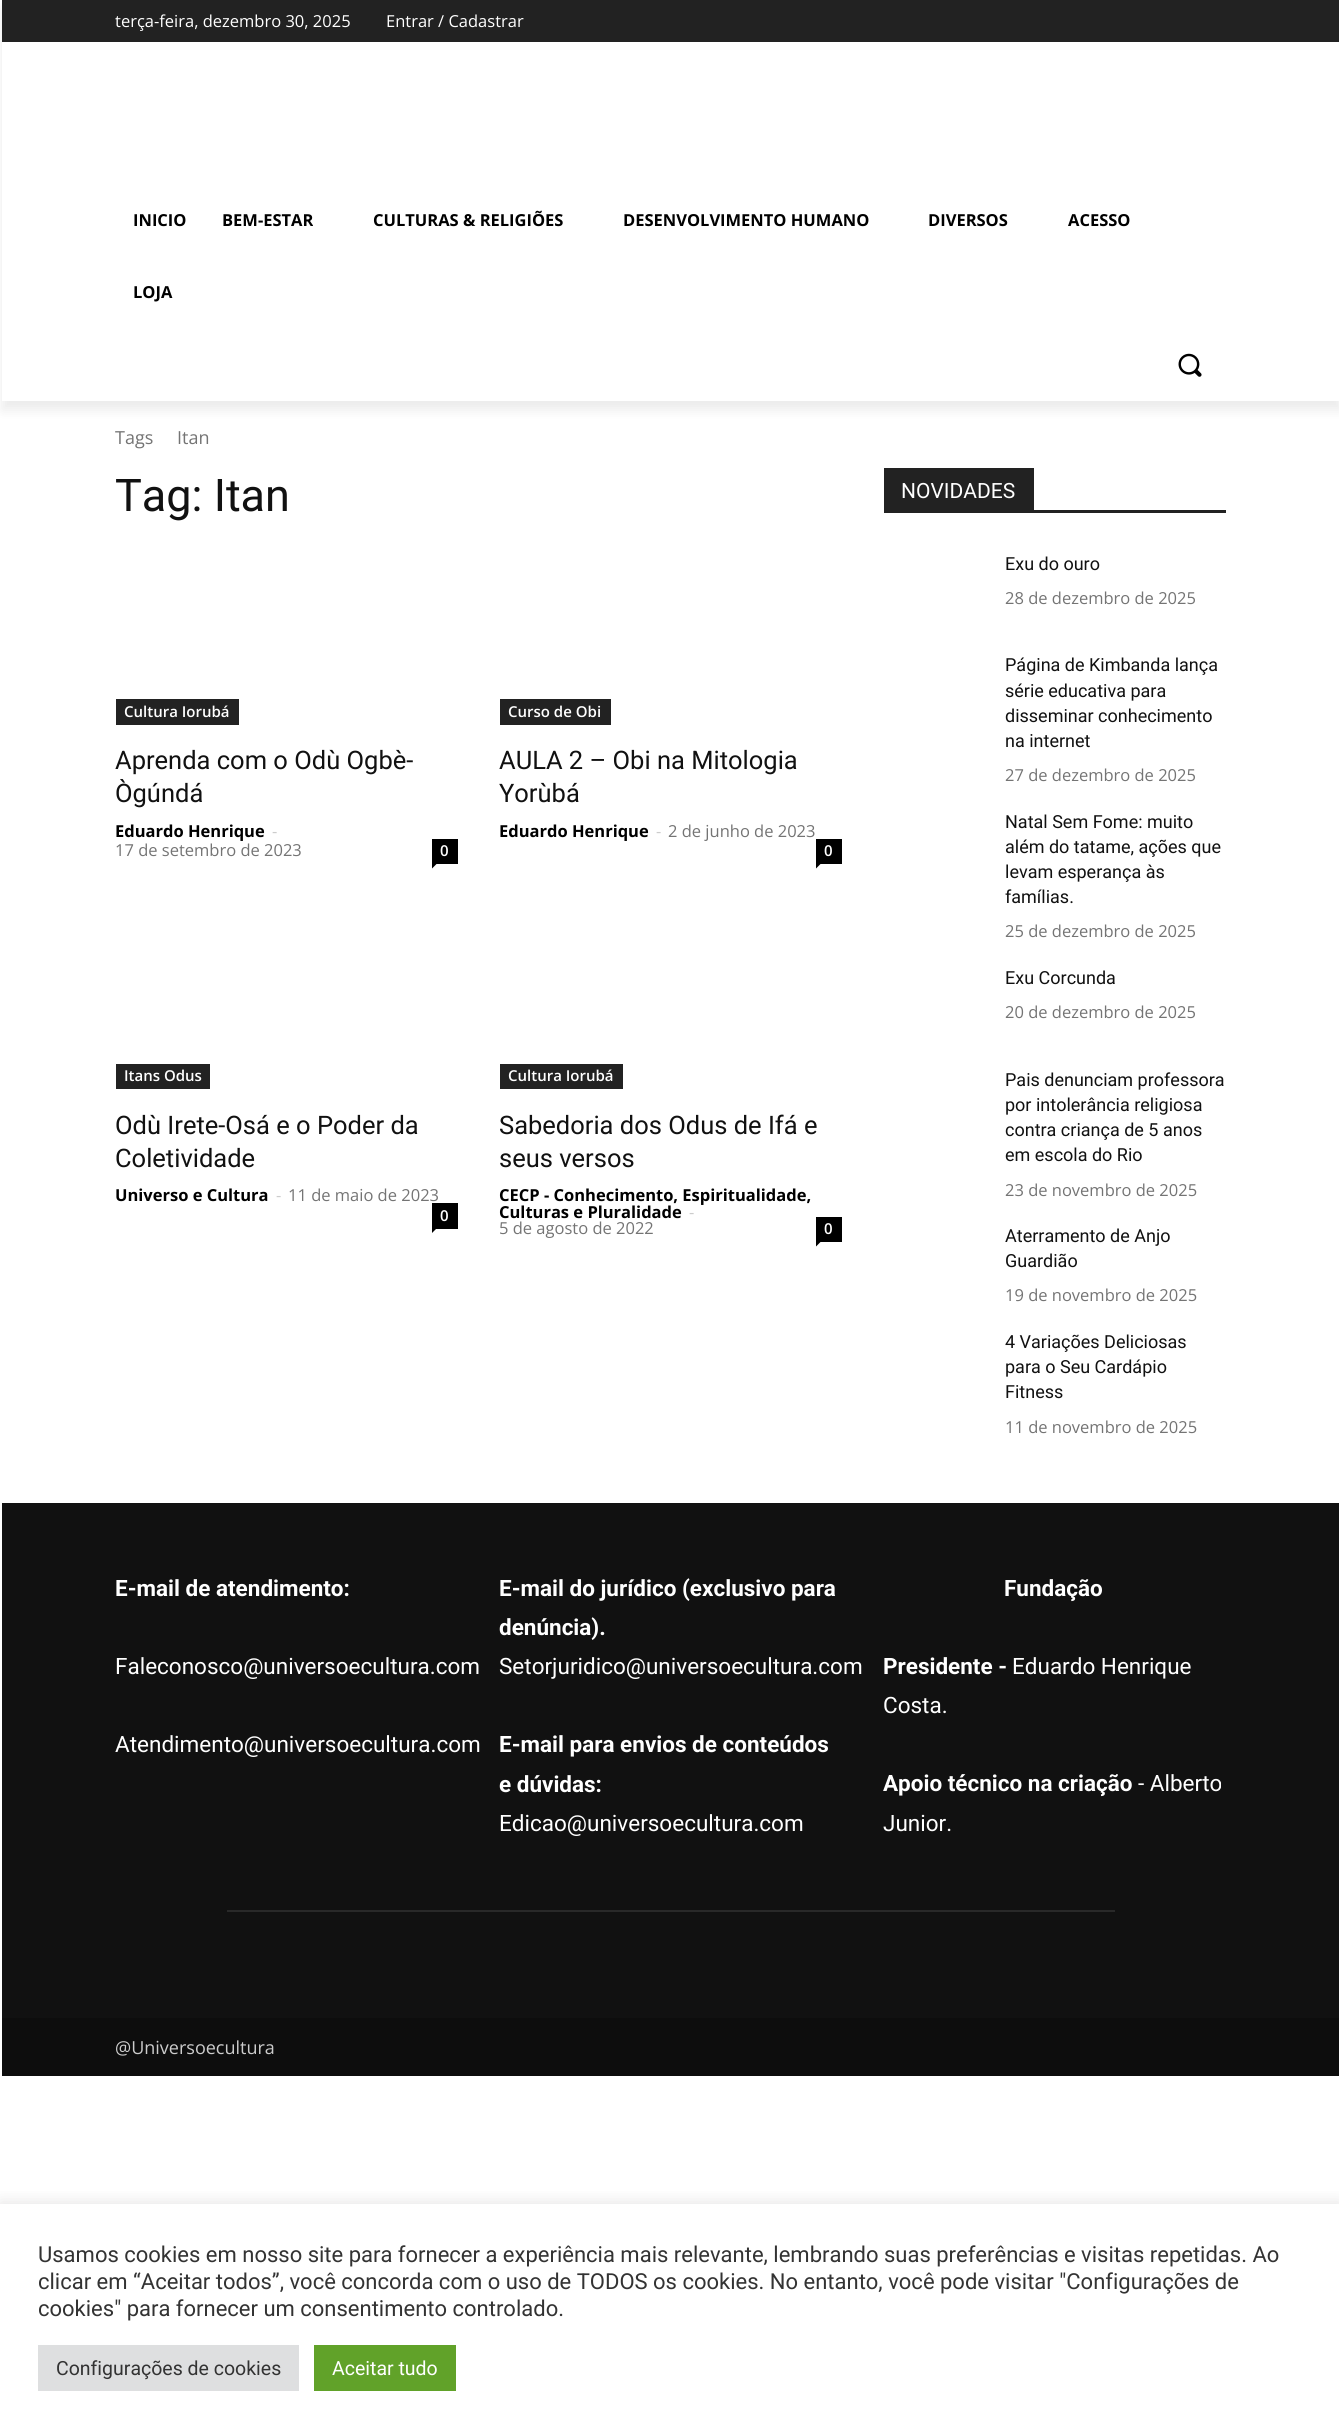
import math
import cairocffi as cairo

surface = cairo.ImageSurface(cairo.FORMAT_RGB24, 1339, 2435)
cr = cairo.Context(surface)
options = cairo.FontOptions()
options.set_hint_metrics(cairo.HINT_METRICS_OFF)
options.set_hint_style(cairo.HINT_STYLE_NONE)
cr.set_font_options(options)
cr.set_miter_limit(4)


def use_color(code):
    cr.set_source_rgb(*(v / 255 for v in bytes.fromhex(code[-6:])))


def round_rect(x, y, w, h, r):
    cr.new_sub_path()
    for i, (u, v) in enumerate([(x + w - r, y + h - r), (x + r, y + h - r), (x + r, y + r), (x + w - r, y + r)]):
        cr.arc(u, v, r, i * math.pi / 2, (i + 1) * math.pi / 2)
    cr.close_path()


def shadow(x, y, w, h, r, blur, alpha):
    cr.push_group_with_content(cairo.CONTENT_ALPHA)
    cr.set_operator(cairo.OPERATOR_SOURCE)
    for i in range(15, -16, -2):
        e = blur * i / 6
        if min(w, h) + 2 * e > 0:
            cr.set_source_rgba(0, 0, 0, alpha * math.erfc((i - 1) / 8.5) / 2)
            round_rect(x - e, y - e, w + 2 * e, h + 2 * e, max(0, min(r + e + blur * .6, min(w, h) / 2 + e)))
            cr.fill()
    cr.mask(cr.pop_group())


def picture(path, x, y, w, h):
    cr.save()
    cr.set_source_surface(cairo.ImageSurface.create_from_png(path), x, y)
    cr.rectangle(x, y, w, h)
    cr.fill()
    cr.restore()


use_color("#ffffff")
cr.paint()
use_color("#222222")
cr.rectangle(2, 0, 1337, 42)
cr.fill()
cr.save()
cr.set_fill_rule(cairo.FILL_RULE_EVEN_ODD)
cr.new_path()
cr.move_to(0, 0)
cr.line_to(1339, 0)
cr.line_to(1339, 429)
cr.line_to(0, 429)
cr.close_path()
cr.move_to(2, 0)
cr.line_to(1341, 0)
cr.line_to(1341, 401)
cr.line_to(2, 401)
cr.close_path()
cr.clip()
use_color("#000000")
shadow(2, 9, 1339, 401, 0, 6, 0.08)
cr.restore()
cr.select_font_face("Open Sans")
cr.set_font_size(16.5)
use_color("#ffffff")
cr.move_to(115, 27)
cr.show_text("terça-feira, dezembro 30, 2025")
cr.move_to(386, 27)
cr.show_text("Entrar / Cadastrar")
cr.select_font_face("Open Sans", cairo.FONT_SLANT_NORMAL, cairo.FONT_WEIGHT_BOLD)
use_color("#000000")
cr.move_to(133, 226)
cr.show_text("INICIO")
cr.move_to(222, 226)
cr.show_text("BEM-ESTAR")
cr.move_to(373, 226)
cr.show_text("CULTURAS & RELIGIÕES")
cr.move_to(623, 226)
cr.show_text("DESENVOLVIMENTO HUMANO")
cr.move_to(928, 226)
cr.show_text("DIVERSOS")
cr.move_to(1068, 226)
cr.show_text("ACESSO")
cr.move_to(133, 298)
cr.show_text("LOJA")
picture("img1.png", 1178, 353, 24, 24)
cr.select_font_face("Open Sans")
cr.set_font_size(18)
use_color("#747474")
cr.move_to(115, 444)
cr.show_text("Tags")
cr.move_to(177, 444)
cr.show_text("Itan")
cr.select_font_face("Roboto")
cr.set_font_size(45)
use_color("#111111")
cr.move_to(115, 511)
cr.show_text("Tag: Itan")
use_color("#222222")
cr.rectangle(116, 699, 123, 26)
cr.fill()
cr.select_font_face("Open Sans SemiBold")
cr.set_font_size(15)
use_color("#ffffff")
cr.move_to(124, 717)
cr.show_text("Cultura Iorubá")
cr.select_font_face("Roboto")
cr.set_font_size(25.5)
use_color("#111111")
cr.move_to(115, 769)
cr.show_text("Aprenda com o Odù Ogbè-")
cr.move_to(115, 802)
cr.show_text("Ògúndá")
cr.select_font_face("Open Sans", cairo.FONT_SLANT_NORMAL, cairo.FONT_WEIGHT_BOLD)
cr.set_font_size(16.5)
use_color("#000000")
cr.move_to(115, 837)
cr.show_text("Eduardo Henrique")
cr.select_font_face("Open Sans")
use_color("#cccccc")
cr.move_to(272, 837)
cr.show_text("-")
use_color("#747474")
cr.move_to(115, 856)
cr.show_text("17 de setembro de 2023")
use_color("#000000")
cr.rectangle(432, 839, 26, 25)
cr.fill()
cr.select_font_face("Open Sans SemiBold")
cr.set_font_size(15)
use_color("#ffffff")
cr.move_to(440, 856)
cr.show_text("0")
use_color("#000000")
cr.new_path()
cr.move_to(432, 864)
cr.line_to(436.5, 864)
cr.line_to(432, 868.5)
cr.close_path()
cr.fill()
use_color("#222222")
cr.rectangle(500, 699, 111, 26)
cr.fill()
use_color("#ffffff")
cr.move_to(508, 717)
cr.show_text("Curso de Obi")
cr.select_font_face("Roboto")
cr.set_font_size(25.5)
use_color("#111111")
cr.move_to(499, 769)
cr.show_text("AULA 2 – Obi na Mitologia")
cr.move_to(499, 802)
cr.show_text("Yorùbá")
cr.select_font_face("Open Sans", cairo.FONT_SLANT_NORMAL, cairo.FONT_WEIGHT_BOLD)
cr.set_font_size(16.5)
use_color("#000000")
cr.move_to(499, 837)
cr.show_text("Eduardo Henrique")
cr.select_font_face("Open Sans")
use_color("#cccccc")
cr.move_to(656, 837)
cr.show_text("-")
use_color("#747474")
cr.move_to(668, 837)
cr.show_text("2 de junho de 2023")
use_color("#000000")
cr.rectangle(816, 839, 26, 25)
cr.fill()
cr.select_font_face("Open Sans SemiBold")
cr.set_font_size(15)
use_color("#ffffff")
cr.move_to(824, 856)
cr.show_text("0")
use_color("#000000")
cr.new_path()
cr.move_to(816, 864)
cr.line_to(820.5, 864)
cr.line_to(816, 868.5)
cr.close_path()
cr.fill()
use_color("#222222")
cr.rectangle(116, 1064, 94, 25)
cr.fill()
use_color("#ffffff")
cr.move_to(124, 1081)
cr.show_text("Itans Odus")
cr.select_font_face("Roboto")
cr.set_font_size(25.5)
use_color("#111111")
cr.move_to(115, 1134)
cr.show_text("Odù Irete-Osá e o Poder da")
cr.move_to(115, 1167)
cr.show_text("Coletividade")
cr.select_font_face("Open Sans", cairo.FONT_SLANT_NORMAL, cairo.FONT_WEIGHT_BOLD)
cr.set_font_size(16.5)
use_color("#000000")
cr.move_to(115, 1201)
cr.show_text("Universo e Cultura")
cr.select_font_face("Open Sans")
use_color("#cccccc")
cr.move_to(276, 1201)
cr.show_text("-")
use_color("#747474")
cr.move_to(288, 1201)
cr.show_text("11 de maio de 2023")
use_color("#000000")
cr.rectangle(432, 1203, 26, 26)
cr.fill()
cr.select_font_face("Open Sans SemiBold")
cr.set_font_size(15)
use_color("#ffffff")
cr.move_to(440, 1221)
cr.show_text("0")
use_color("#000000")
cr.new_path()
cr.move_to(432, 1228.5)
cr.line_to(436.5, 1228.5)
cr.line_to(432, 1233)
cr.close_path()
cr.fill()
use_color("#222222")
cr.rectangle(500, 1064, 123, 25)
cr.fill()
use_color("#ffffff")
cr.move_to(508, 1081)
cr.show_text("Cultura Iorubá")
cr.select_font_face("Roboto")
cr.set_font_size(25.5)
use_color("#111111")
cr.move_to(499, 1134)
cr.show_text("Sabedoria dos Odus de Ifá e")
cr.move_to(499, 1167)
cr.show_text("seus versos")
cr.select_font_face("Open Sans", cairo.FONT_SLANT_NORMAL, cairo.FONT_WEIGHT_BOLD)
cr.set_font_size(16.5)
use_color("#000000")
cr.move_to(499, 1201)
cr.show_text("CECP - Conhecimento, Espiritualidade,")
cr.move_to(499, 1218)
cr.show_text("Culturas e Pluralidade")
cr.select_font_face("Open Sans")
use_color("#cccccc")
cr.move_to(689, 1218)
cr.show_text("-")
use_color("#747474")
cr.move_to(499, 1234)
cr.show_text("5 de agosto de 2022")
use_color("#000000")
cr.rectangle(816, 1217, 26, 25)
cr.fill()
cr.select_font_face("Open Sans SemiBold")
cr.set_font_size(15)
use_color("#ffffff")
cr.move_to(824, 1234)
cr.show_text("0")
use_color("#000000")
cr.new_path()
cr.move_to(816, 1242)
cr.line_to(820.5, 1242)
cr.line_to(816, 1246.5)
cr.close_path()
cr.fill()
use_color("#222222")
cr.rectangle(884, 510, 342, 3)
cr.fill()
cr.rectangle(884, 468, 150, 42)
cr.fill()
cr.select_font_face("Roboto")
cr.set_font_size(21)
use_color("#ffffff")
cr.move_to(901, 498)
cr.show_text("NOVIDADES")
cr.set_font_size(18)
use_color("#111111")
cr.move_to(1005, 570)
cr.show_text("Exu do ouro")
cr.select_font_face("Open Sans")
cr.set_font_size(16.5)
use_color("#747474")
cr.move_to(1005, 604)
cr.show_text("28 de dezembro de 2025")
cr.select_font_face("Roboto")
cr.set_font_size(18)
use_color("#111111")
cr.move_to(1005, 671)
cr.show_text("Página de Kimbanda lança")
cr.move_to(1005, 697)
cr.show_text("série educativa para")
cr.move_to(1005, 722)
cr.show_text("disseminar conhecimento")
cr.move_to(1005, 747)
cr.show_text("na internet")
cr.select_font_face("Open Sans")
cr.set_font_size(16.5)
use_color("#747474")
cr.move_to(1005, 781)
cr.show_text("27 de dezembro de 2025")
cr.select_font_face("Roboto")
cr.set_font_size(18)
use_color("#111111")
cr.move_to(1005, 828)
cr.show_text("Natal Sem Fome: muito")
cr.move_to(1005, 853)
cr.show_text("além do tatame, ações que")
cr.move_to(1005, 878)
cr.show_text("levam esperança às")
cr.move_to(1005, 903)
cr.show_text("famílias.")
cr.select_font_face("Open Sans")
cr.set_font_size(16.5)
use_color("#747474")
cr.move_to(1005, 937)
cr.show_text("25 de dezembro de 2025")
cr.select_font_face("Roboto")
cr.set_font_size(18)
use_color("#111111")
cr.move_to(1005, 984)
cr.show_text("Exu Corcunda")
cr.select_font_face("Open Sans")
cr.set_font_size(16.5)
use_color("#747474")
cr.move_to(1005, 1018)
cr.show_text("20 de dezembro de 2025")
cr.select_font_face("Roboto")
cr.set_font_size(18)
use_color("#111111")
cr.move_to(1005, 1086)
cr.show_text("Pais denunciam professora")
cr.move_to(1005, 1111)
cr.show_text("por intolerância religiosa")
cr.move_to(1005, 1136)
cr.show_text("contra criança de 5 anos")
cr.move_to(1005, 1161)
cr.show_text("em escola do Rio")
cr.select_font_face("Open Sans")
cr.set_font_size(16.5)
use_color("#747474")
cr.move_to(1005, 1196)
cr.show_text("23 de novembro de 2025")
cr.select_font_face("Roboto")
cr.set_font_size(18)
use_color("#111111")
cr.move_to(1005, 1242)
cr.show_text("Aterramento de Anjo")
cr.move_to(1005, 1267)
cr.show_text("Guardião")
cr.select_font_face("Open Sans")
cr.set_font_size(16.5)
use_color("#747474")
cr.move_to(1005, 1301)
cr.show_text("19 de novembro de 2025")
cr.select_font_face("Roboto")
cr.set_font_size(18)
use_color("#111111")
cr.move_to(1005, 1348)
cr.show_text("4 Variações Deliciosas")
cr.move_to(1005, 1373)
cr.show_text("para o Seu Cardápio")
cr.move_to(1005, 1398)
cr.show_text("Fitness")
cr.select_font_face("Open Sans")
cr.set_font_size(16.5)
use_color("#747474")
cr.move_to(1005, 1433)
cr.show_text("11 de novembro de 2025")
use_color("#111111")
cr.rectangle(2, 1503, 1337, 515)
cr.fill()
cr.select_font_face("Roboto", cairo.FONT_SLANT_NORMAL, cairo.FONT_WEIGHT_BOLD)
cr.set_font_size(22.5)
use_color("#ffffff")
cr.move_to(115, 1596)
cr.show_text("E-mail de atendimento:")
cr.select_font_face("Roboto")
cr.move_to(115, 1674)
cr.show_text("Faleconosco@universoecultura.com")
cr.move_to(115, 1752)
cr.show_text("Atendimento@universoecultura.com")
cr.select_font_face("Roboto", cairo.FONT_SLANT_NORMAL, cairo.FONT_WEIGHT_BOLD)
cr.move_to(499, 1596)
cr.show_text("E-mail do jurídico (exclusivo para")
cr.move_to(499, 1635)
cr.show_text("denúncia).")
cr.select_font_face("Roboto")
cr.move_to(499, 1674)
cr.show_text("Setorjuridico@universoecultura.com")
cr.select_font_face("Roboto", cairo.FONT_SLANT_NORMAL, cairo.FONT_WEIGHT_BOLD)
cr.move_to(499, 1752)
cr.show_text("E-mail para envios de conteúdos")
cr.move_to(499, 1792)
cr.show_text("e dúvidas:")
cr.select_font_face("Roboto")
cr.move_to(499, 1831)
cr.show_text("Edicao@universoecultura.com")
cr.select_font_face("Roboto", cairo.FONT_SLANT_NORMAL, cairo.FONT_WEIGHT_BOLD)
cr.move_to(1004, 1596)
cr.show_text("Fundação")
cr.move_to(883, 1674)
cr.show_text("Presidente -")
cr.select_font_face("Roboto")
cr.move_to(1012, 1674)
cr.show_text("Eduardo Henrique")
cr.move_to(883, 1713)
cr.show_text("Costa.")
cr.select_font_face("Roboto", cairo.FONT_SLANT_NORMAL, cairo.FONT_WEIGHT_BOLD)
cr.move_to(883, 1791)
cr.show_text("Apoio técnico na criação")
cr.select_font_face("Roboto")
cr.move_to(1138, 1791)
cr.show_text("- Alberto")
cr.move_to(883, 1831)
cr.show_text("Junior.")
use_color("#292929")
cr.rectangle(227, 1910, 888, 2)
cr.fill()
use_color("#0d0d0d")
cr.rectangle(2, 2018, 1337, 58)
cr.fill()
cr.select_font_face("Open Sans")
cr.set_font_size(18)
use_color("#cccccc")
cr.move_to(115, 2054)
cr.show_text("@Universoecultura")
cr.save()
cr.rectangle(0, 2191, 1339, 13)
cr.clip()
use_color("#acabab")
shadow(0, 2202, 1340, 233, 0, 7.5, 0.3)
cr.restore()
cr.select_font_face("Roboto")
cr.set_font_size(22)
use_color("#333333")
cr.move_to(38, 2262)
cr.show_text("Usamos cookies em nosso site para fornecer a experiência mais relevante, lembrando suas preferências e visitas repetidas. Ao")
cr.move_to(38, 2289)
cr.show_text("clicar em “Aceitar todos”, você concorda com o uso de TODOS os cookies. No entanto, você pode visitar \"Configurações de")
cr.move_to(38, 2316)
cr.show_text("cookies\" para fornecer um consentimento controlado.")
use_color("#dedfe0")
cr.rectangle(38, 2345, 261, 46)
cr.fill()
cr.set_font_size(19.5)
use_color("#333333")
cr.move_to(56, 2375)
cr.show_text("Configurações de cookies")
use_color("#61a229")
cr.rectangle(314, 2345, 142, 46)
cr.fill()
use_color("#ffffff")
cr.move_to(332, 2375)
cr.show_text("Aceitar tudo")
surface.write_to_png("result.png")
